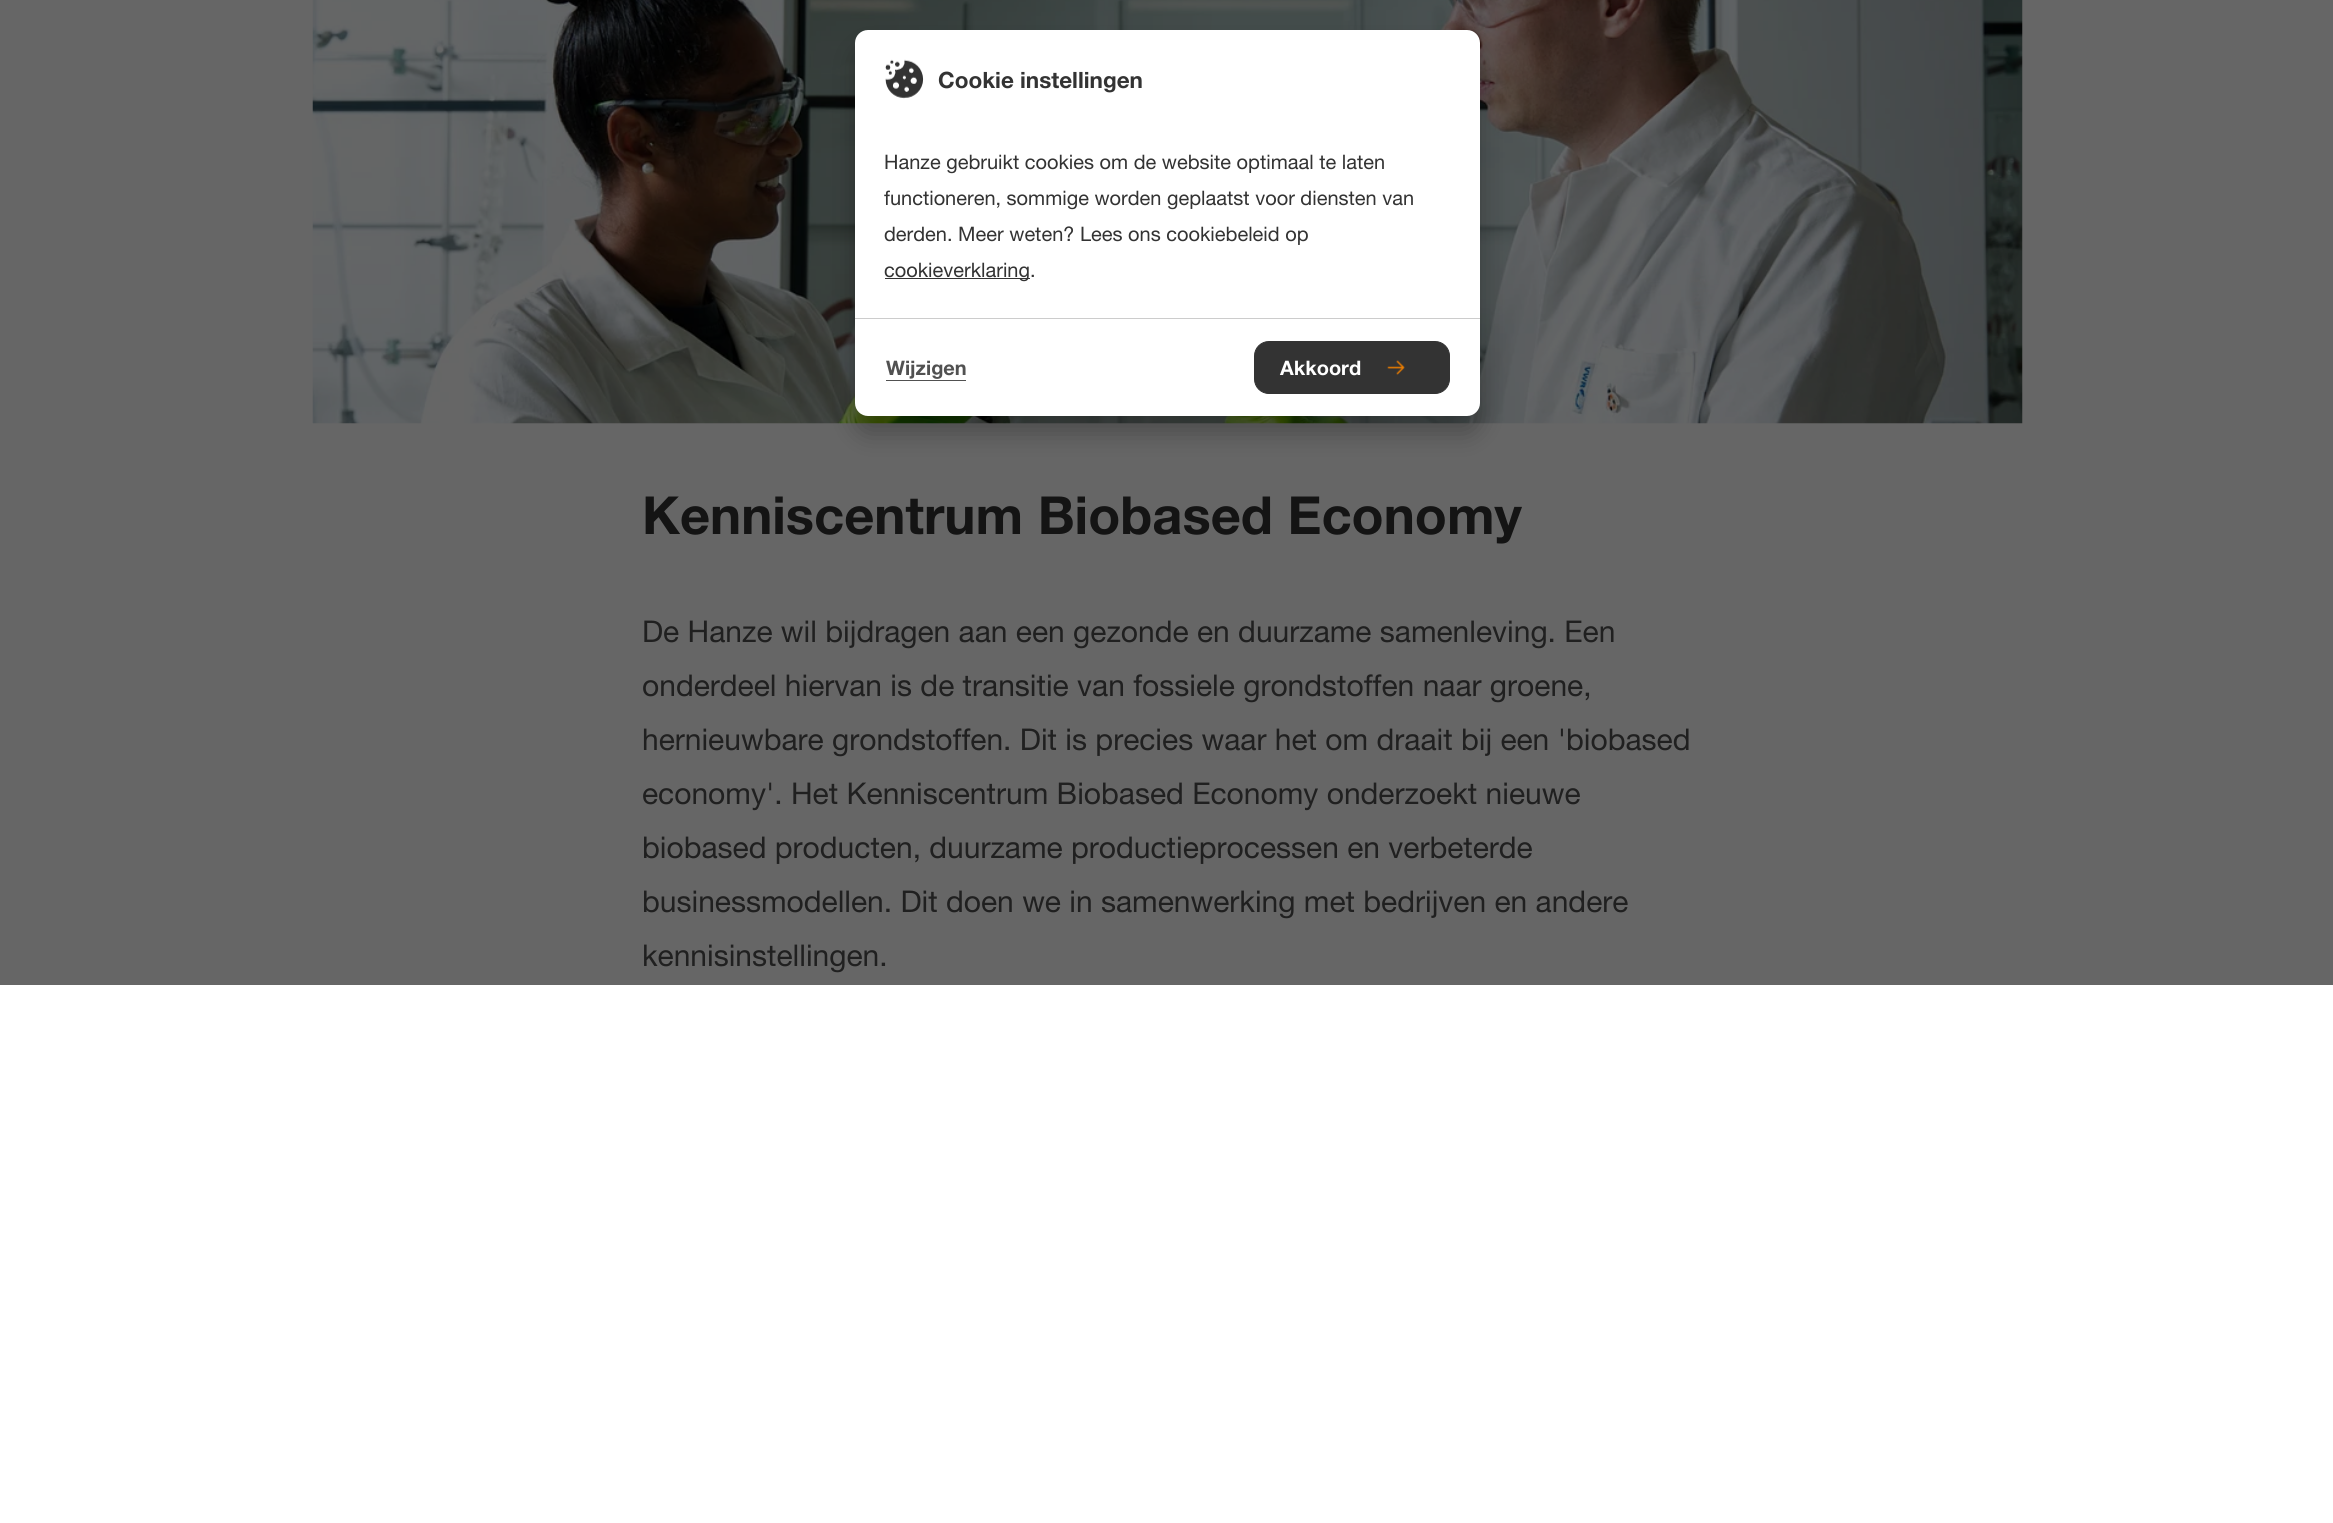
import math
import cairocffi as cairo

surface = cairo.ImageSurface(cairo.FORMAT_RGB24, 2333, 1523)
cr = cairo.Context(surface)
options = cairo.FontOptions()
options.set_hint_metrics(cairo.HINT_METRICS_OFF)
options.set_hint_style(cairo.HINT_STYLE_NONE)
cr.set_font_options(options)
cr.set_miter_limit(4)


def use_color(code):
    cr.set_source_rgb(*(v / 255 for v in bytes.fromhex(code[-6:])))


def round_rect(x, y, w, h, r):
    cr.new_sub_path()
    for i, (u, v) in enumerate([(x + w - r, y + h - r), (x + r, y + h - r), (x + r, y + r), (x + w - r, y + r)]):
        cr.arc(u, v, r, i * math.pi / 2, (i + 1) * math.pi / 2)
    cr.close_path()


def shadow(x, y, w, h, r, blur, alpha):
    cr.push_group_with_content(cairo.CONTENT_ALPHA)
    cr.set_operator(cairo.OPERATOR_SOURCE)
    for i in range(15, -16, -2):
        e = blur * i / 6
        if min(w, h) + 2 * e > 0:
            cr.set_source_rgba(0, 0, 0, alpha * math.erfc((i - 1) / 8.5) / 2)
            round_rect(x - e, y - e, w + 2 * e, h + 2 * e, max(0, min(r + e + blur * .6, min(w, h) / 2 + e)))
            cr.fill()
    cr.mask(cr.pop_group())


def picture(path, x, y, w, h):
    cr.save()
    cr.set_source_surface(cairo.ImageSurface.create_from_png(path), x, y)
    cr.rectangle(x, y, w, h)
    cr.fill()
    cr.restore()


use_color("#ffffff")
cr.paint()
use_color("#666666")
cr.rectangle(0, 0, 2333, 985)
cr.fill()
picture("img3.png", 312, 0, 1711, 424)
use_color("#000000")
shadow(855, 48, 625, 386, 13, 12.5, 0.25)
use_color("#ffffff")
round_rect(855, 30, 625, 386, 13)
cr.fill()
picture("img1.png", 885, 59, 39, 40)
cr.select_font_face("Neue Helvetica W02", cairo.FONT_SLANT_NORMAL, cairo.FONT_WEIGHT_BOLD)
cr.set_font_size(22.5)
use_color("#333333")
cr.move_to(938, 88)
cr.show_text("Cookie instellingen")
cr.select_font_face("Neue Helvetica W02")
cr.set_font_size(20)
cr.move_to(884, 169)
cr.show_text("Hanze gebruikt cookies om de website optimaal te laten")
cr.move_to(884, 205)
cr.show_text("functioneren, sommige worden geplaatst voor diensten van")
cr.move_to(884, 241)
cr.show_text("derden. Meer weten? Lees ons cookiebeleid op")
cr.rectangle(885, 278, 145, 1)
cr.fill()
cr.move_to(884, 277)
cr.show_text("cookieverklaring.")
use_color("#cccccc")
cr.rectangle(855, 318, 625, 1)
cr.fill()
cr.select_font_face("Neue Helvetica W02", cairo.FONT_SLANT_NORMAL, cairo.FONT_WEIGHT_BOLD)
use_color("#515151")
cr.move_to(886, 375)
cr.show_text("Wijzigen")
cr.rectangle(886, 380, 80, 1)
cr.fill()
use_color("#333333")
round_rect(1254.5, 341.5, 195, 52, 14.5)
cr.fill_preserve()
cr.set_line_width(1)
cr.stroke()
use_color("#ffffff")
cr.move_to(1280, 375)
cr.show_text("Akkoord")
picture("img2.png", 1387, 360, 18, 15)
cr.set_font_size(52.5)
use_color("#141414")
cr.move_to(642, 534)
cr.show_text("Kenniscentrum Biobased Economy")
cr.select_font_face("Neue Helvetica W02")
cr.set_font_size(30)
use_color("#202020")
cr.move_to(642, 642)
cr.show_text("De Hanze wil bijdragen aan een gezonde en duurzame samenleving. Een")
cr.move_to(642, 696)
cr.show_text("onderdeel hiervan is de transitie van fossiele grondstoffen naar groene,")
cr.move_to(642, 750)
cr.show_text("hernieuwbare grondstoffen. Dit is precies waar het om draait bij een 'biobased")
cr.move_to(642, 804)
cr.show_text("economy'. Het Kenniscentrum Biobased Economy onderzoekt nieuwe")
cr.move_to(642, 858)
cr.show_text("biobased producten, duurzame productieprocessen en verbeterde")
cr.move_to(642, 912)
cr.show_text("businessmodellen. Dit doen we in samenwerking met bedrijven en andere")
cr.move_to(642, 966)
cr.show_text("kennisinstellingen.")
surface.write_to_png("result.png")
